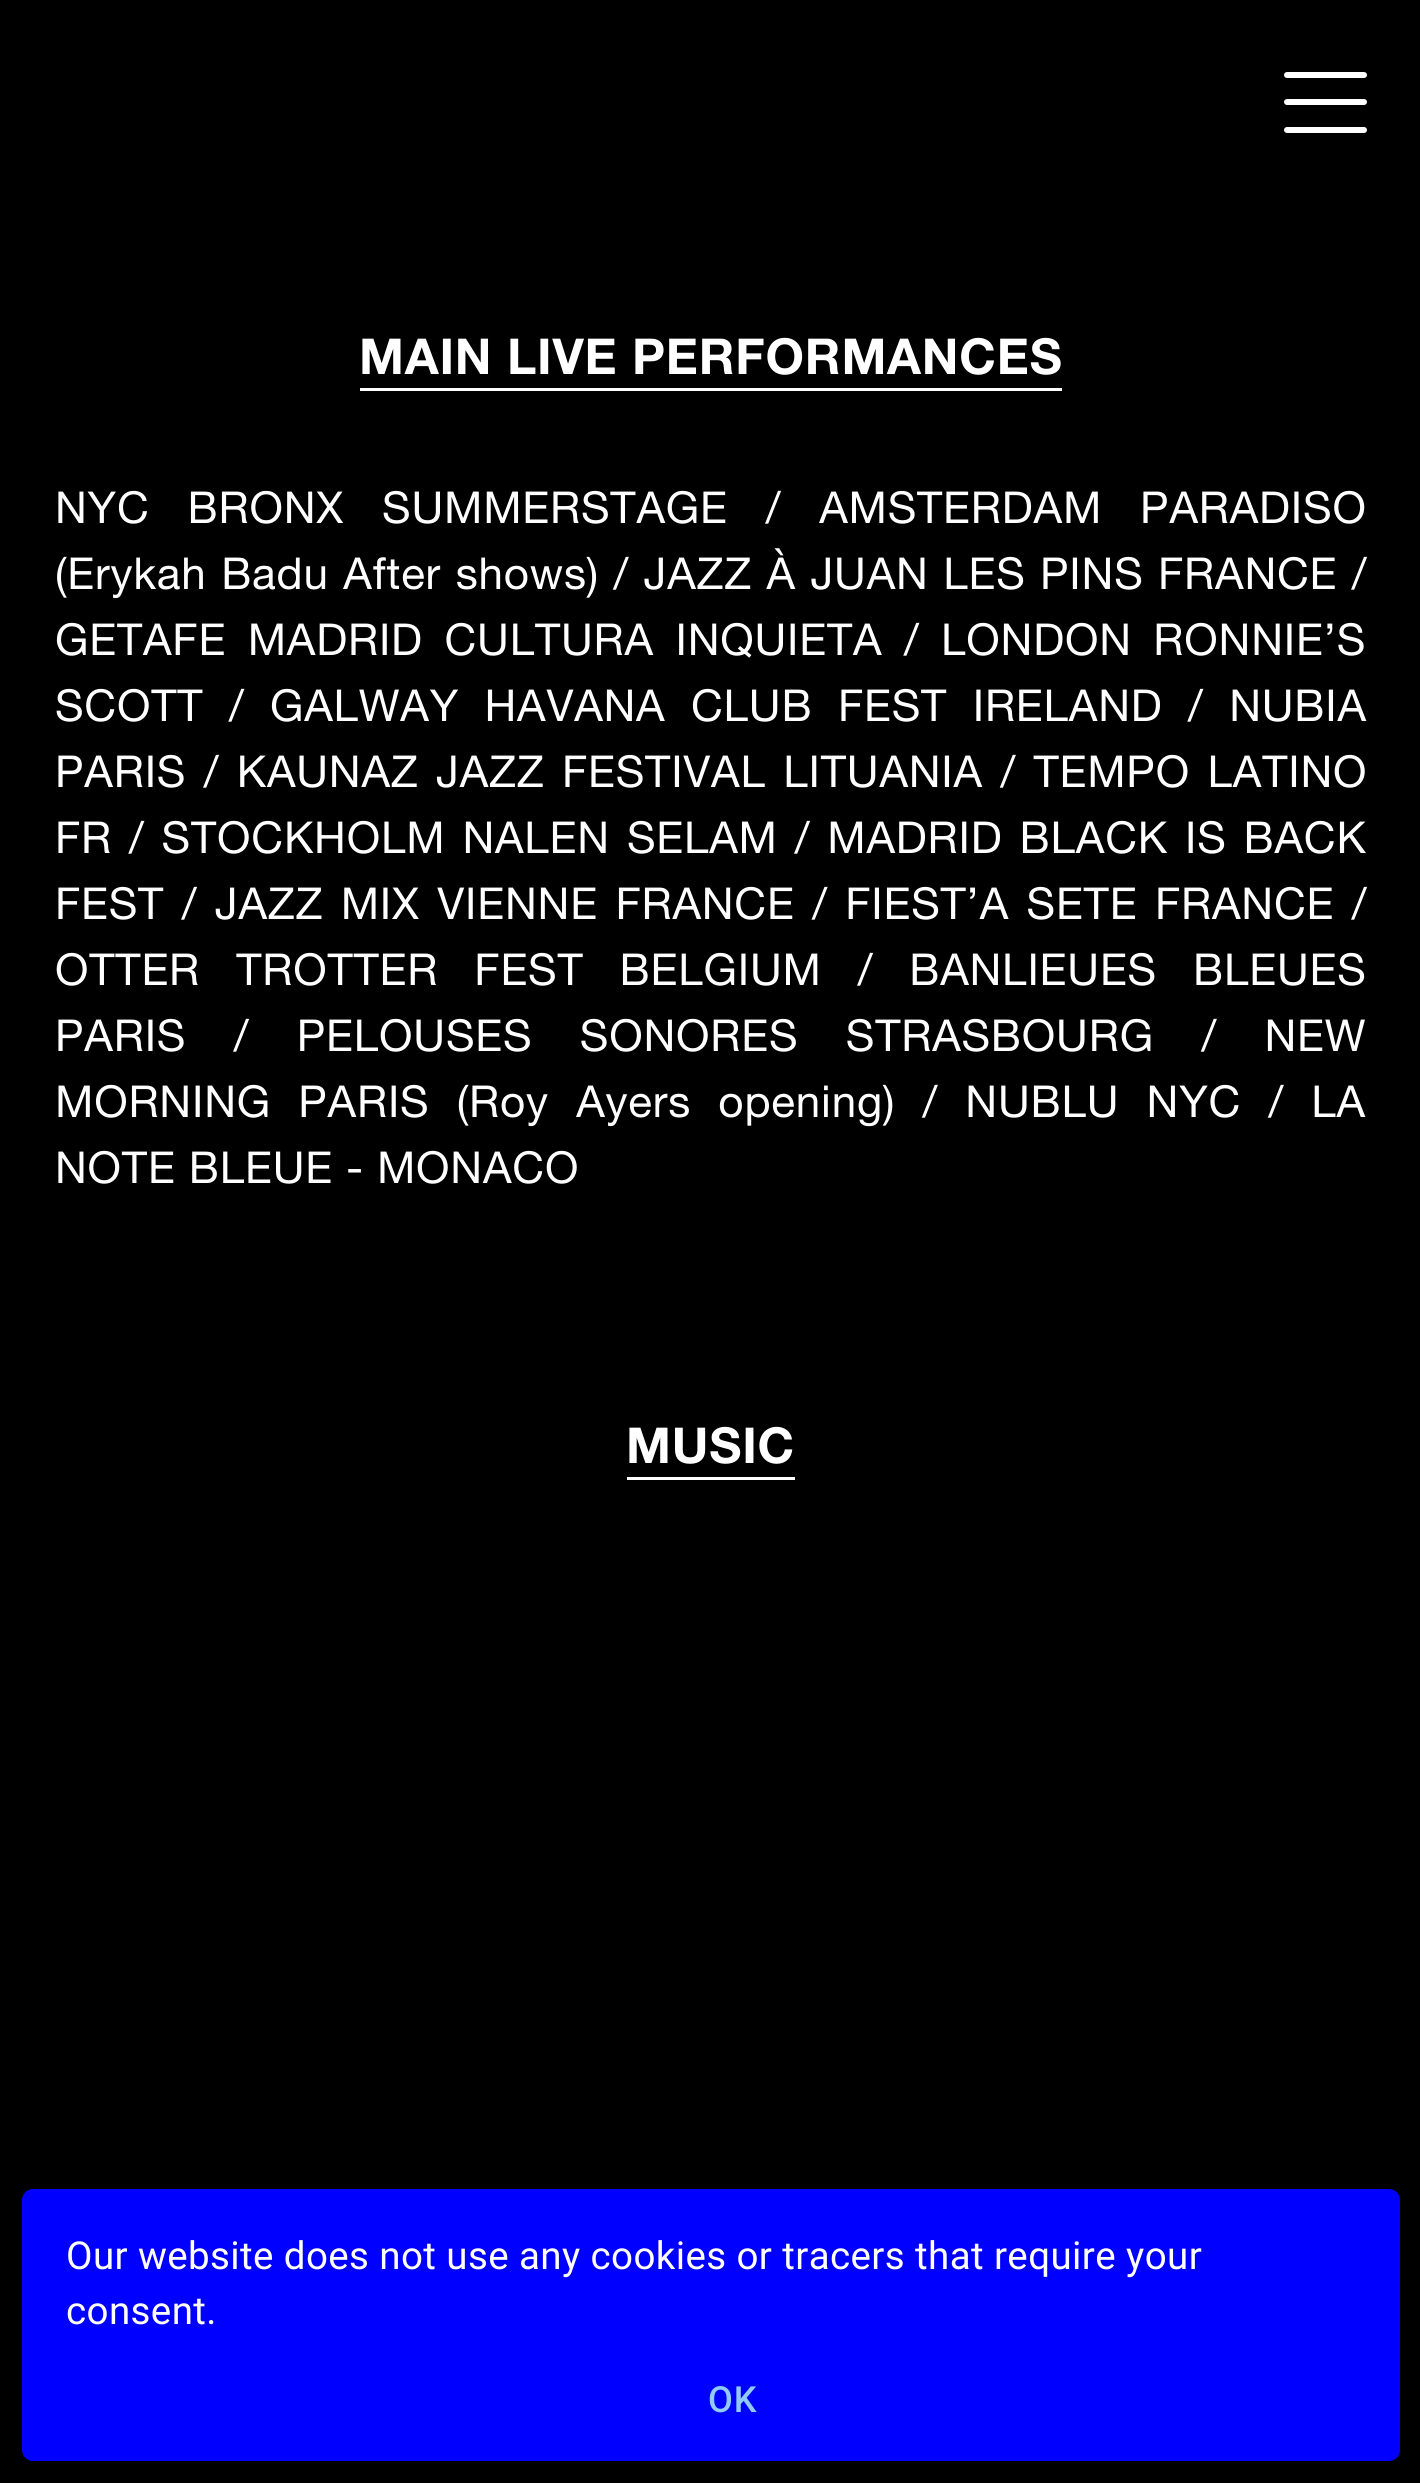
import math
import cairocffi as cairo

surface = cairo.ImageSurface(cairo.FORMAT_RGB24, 1420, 2483)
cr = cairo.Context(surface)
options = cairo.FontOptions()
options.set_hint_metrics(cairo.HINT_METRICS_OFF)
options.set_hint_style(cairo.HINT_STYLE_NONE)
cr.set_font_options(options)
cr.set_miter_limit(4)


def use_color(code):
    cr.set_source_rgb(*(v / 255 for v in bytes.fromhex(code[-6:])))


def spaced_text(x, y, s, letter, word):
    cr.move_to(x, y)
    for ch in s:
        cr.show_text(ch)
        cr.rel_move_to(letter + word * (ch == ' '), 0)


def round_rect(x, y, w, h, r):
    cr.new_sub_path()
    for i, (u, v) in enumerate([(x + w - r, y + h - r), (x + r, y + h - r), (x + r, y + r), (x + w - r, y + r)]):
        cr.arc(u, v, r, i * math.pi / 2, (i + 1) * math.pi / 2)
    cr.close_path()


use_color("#000000")
cr.paint()
use_color("#ffffff")
round_rect(1284, 99, 83, 6, 3)
cr.fill()
round_rect(1284, 72, 83, 6, 3)
cr.fill()
round_rect(1284, 127, 83, 6, 3)
cr.fill()
cr.select_font_face("Helvetica Neue", cairo.FONT_SLANT_NORMAL, cairo.FONT_WEIGHT_BOLD)
cr.set_font_size(49.5)
spaced_text(359, 374, "MAIN LIVE PERFORMANCES", 0.82, 0)
cr.rectangle(360, 388, 702, 3)
cr.fill()
cr.select_font_face("Helvetica Neue")
cr.set_font_size(44)
spaced_text(55, 523, "NYC BRONX SUMMERSTAGE / AMSTERDAM PARADISO", 0.82, 25)
spaced_text(55, 589, "(Erykah Badu After shows) / JAZZ À JUAN LES PINS FRANCE /", 0.82, 1.5)
spaced_text(55, 655, "GETAFE MADRID CULTURA INQUIETA / LONDON RONNIE’S", 0.82, 8.5)
spaced_text(55, 721, "SCOTT / GALWAY HAVANA CLUB FEST IRELAND / NUBIA", 0.82, 12.5)
spaced_text(55, 787, "PARIS / KAUNAZ JAZZ FESTIVAL LITUANIA / TEMPO LATINO", 0.82, 4.5)
spaced_text(55, 853, "FR / STOCKHOLM NALEN SELAM / MADRID BLACK IS BACK", 0.82, 4)
spaced_text(55, 919, "FEST / JAZZ MIX VIENNE FRANCE / FIEST’A SETE FRANCE /", 0.82, 4.5)
spaced_text(55, 985, "OTTER TROTTER FEST BELGIUM / BANLIEUES BLEUES", 0.82, 23)
spaced_text(55, 1051, "PARIS / PELOUSES SONORES STRASBOURG / NEW", 0.82, 34.5)
spaced_text(55, 1117, "MORNING PARIS (Roy Ayers opening) / NUBLU NYC / LA", 0.82, 14.25)
spaced_text(55, 1183, "NOTE BLEUE - MONACO", 0.82, 0)
cr.select_font_face("Helvetica Neue", cairo.FONT_SLANT_NORMAL, cairo.FONT_WEIGHT_BOLD)
cr.set_font_size(49.5)
spaced_text(626, 1463, "MUSIC", 0.82, 0)
cr.rectangle(627, 1477, 168, 3)
cr.fill()
use_color("#0000ff")
round_rect(22, 2189, 1378, 272, 11)
cr.fill()
cr.select_font_face("Roboto")
cr.set_font_size(38.5)
use_color("#ffffff")
spaced_text(66, 2269, "Our website does not use any cookies or tracers that require your", 0.4, 0)
spaced_text(66, 2324, "consent.", 0.4, 0)
cr.select_font_face("Roboto Medium")
cr.set_font_size(36)
use_color("#90caf9")
spaced_text(708, 2412, "OK", 1, 0)
surface.write_to_png("result.png")
